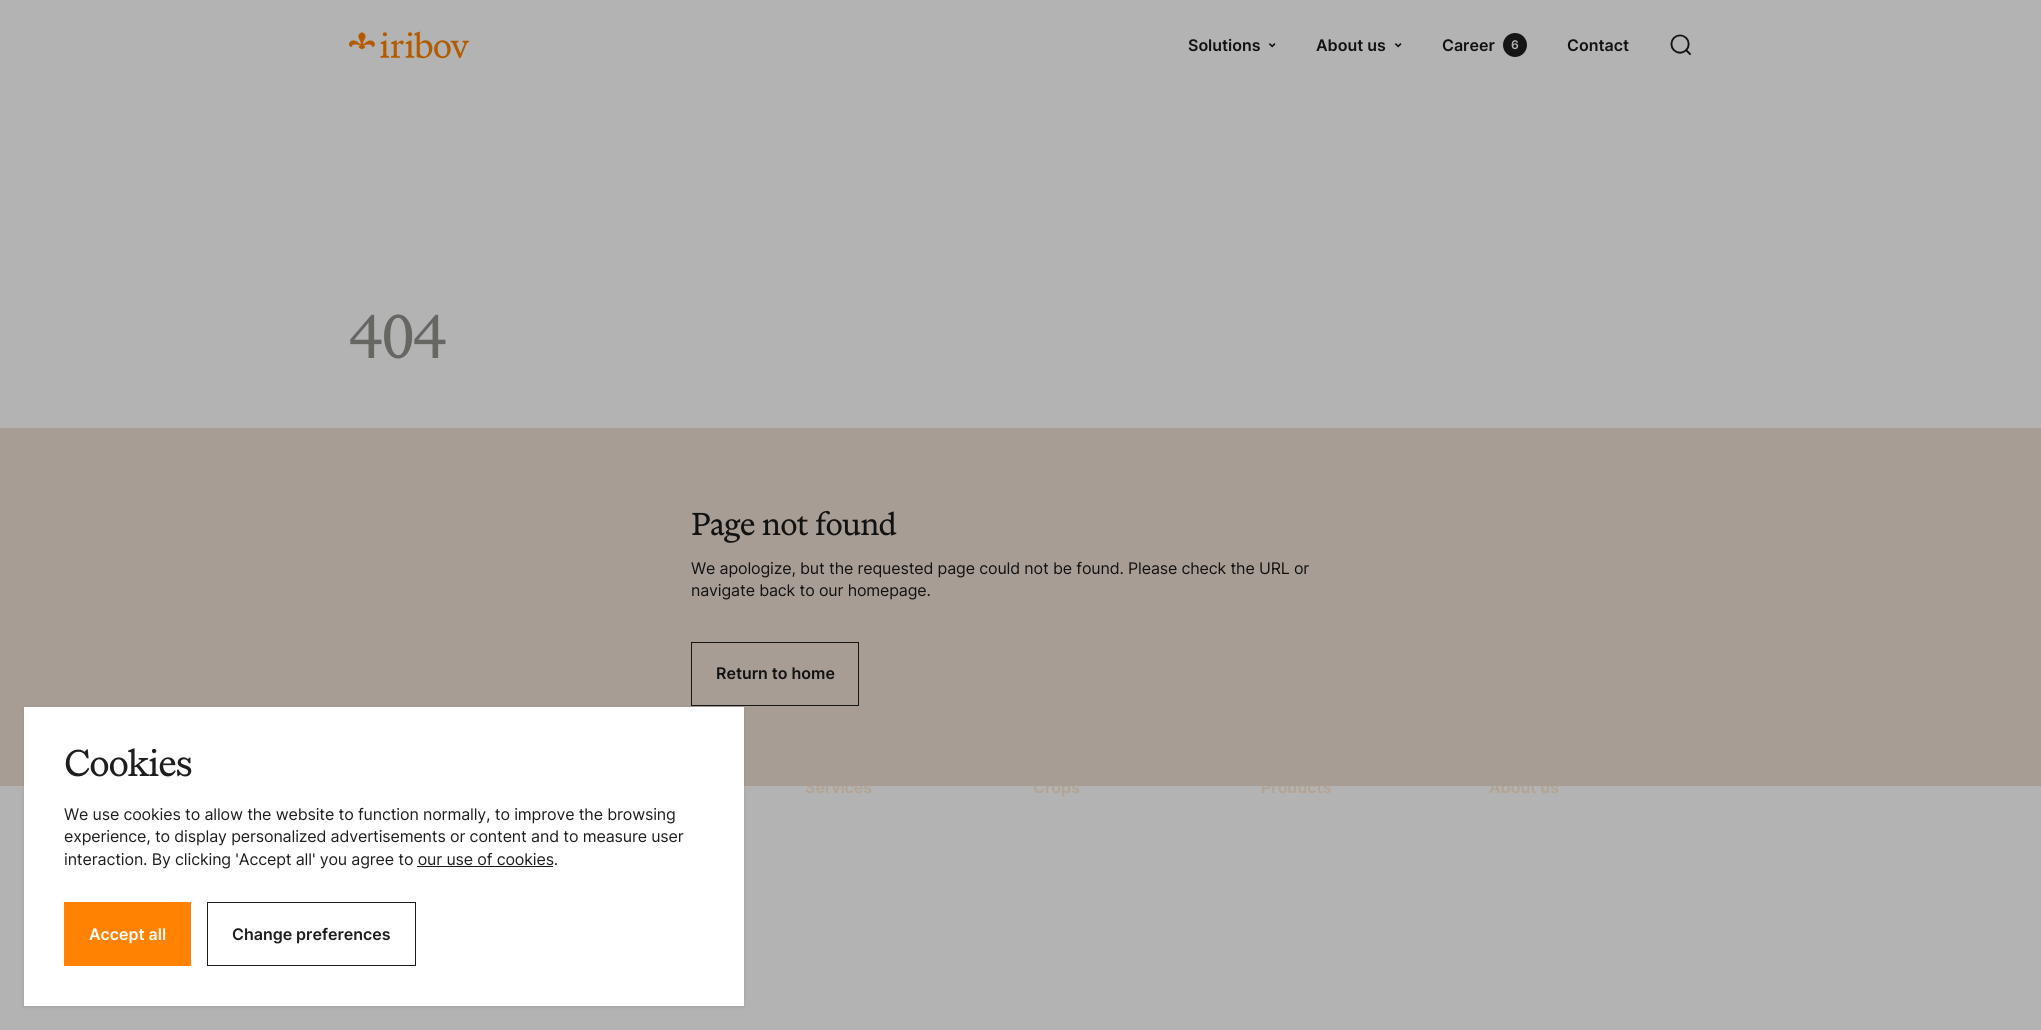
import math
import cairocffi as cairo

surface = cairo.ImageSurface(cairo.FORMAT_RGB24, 2041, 1030)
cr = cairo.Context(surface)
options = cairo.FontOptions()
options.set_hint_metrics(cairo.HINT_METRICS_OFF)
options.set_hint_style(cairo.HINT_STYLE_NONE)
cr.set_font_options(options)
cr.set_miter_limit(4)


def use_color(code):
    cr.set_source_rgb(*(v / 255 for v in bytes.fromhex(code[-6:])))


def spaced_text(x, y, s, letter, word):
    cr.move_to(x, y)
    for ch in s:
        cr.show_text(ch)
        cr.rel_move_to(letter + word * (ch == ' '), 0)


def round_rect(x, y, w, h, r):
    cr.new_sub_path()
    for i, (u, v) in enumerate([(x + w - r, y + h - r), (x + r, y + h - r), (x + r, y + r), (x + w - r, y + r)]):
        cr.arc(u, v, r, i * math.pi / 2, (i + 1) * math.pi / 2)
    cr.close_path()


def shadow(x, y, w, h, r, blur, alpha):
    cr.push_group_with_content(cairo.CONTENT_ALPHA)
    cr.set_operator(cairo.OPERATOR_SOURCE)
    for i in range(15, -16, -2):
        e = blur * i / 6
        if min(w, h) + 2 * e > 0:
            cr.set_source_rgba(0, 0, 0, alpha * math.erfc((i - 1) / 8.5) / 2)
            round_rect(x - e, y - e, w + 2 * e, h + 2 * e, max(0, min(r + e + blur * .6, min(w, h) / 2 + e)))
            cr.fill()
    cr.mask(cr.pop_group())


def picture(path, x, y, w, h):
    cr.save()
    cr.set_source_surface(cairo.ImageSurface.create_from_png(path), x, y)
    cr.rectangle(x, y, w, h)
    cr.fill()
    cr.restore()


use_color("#b3b3b3")
cr.paint()
picture("img1.png", 349, 31, 120, 28)
cr.select_font_face("Inter SemiBold")
cr.set_font_size(16)
use_color("#121212")
cr.move_to(1188, 51)
cr.show_text("Solutions")
picture("img2.png", 1268, 43, 8, 5)
cr.move_to(1316, 51)
cr.show_text("About us")
picture("img3.png", 1394, 43, 8, 5)
cr.move_to(1442, 51)
cr.show_text("Career")
use_color("#151515")
cr.new_path()
cr.arc(1515, 45, 12, 0, 2 * math.pi)
cr.fill()
cr.set_font_size(12)
use_color("#b3b3b3")
cr.move_to(1511, 49)
cr.show_text("6")
cr.set_font_size(16)
use_color("#121212")
cr.move_to(1567, 51)
cr.show_text("Contact")
picture("img4.png", 1670, 34, 22, 22)
cr.select_font_face("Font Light")
cr.set_font_size(66)
use_color("#666662")
spaced_text(349, 358, "404", -2.5, 0)
cr.select_font_face("Inter SemiBold")
cr.set_font_size(16)
use_color("#b3a393")
cr.move_to(805, 793)
cr.show_text("Services")
cr.move_to(1033, 793)
cr.show_text("Crops")
cr.move_to(1261, 793)
cr.show_text("Products")
cr.move_to(1489, 793)
cr.show_text("About us")
use_color("#a79d94")
cr.rectangle(0, 428, 2041, 358)
cr.fill()
cr.select_font_face("Font Light")
cr.set_font_size(34)
use_color("#121212")
spaced_text(691, 535, "Page not found", -0.75, 0)
cr.select_font_face("Inter")
cr.set_font_size(16)
spaced_text(691, 574, "We apologize, but the requested page could not be found. Please check the URL or", -0.15, 0)
spaced_text(691, 596, "navigate back to our homepage.", -0.15, 0)
cr.rectangle(691.5, 642.5, 167, 63)
use_color("#151515")
cr.set_line_width(1)
cr.stroke()
cr.select_font_face("Inter SemiBold")
use_color("#121212")
cr.move_to(716, 679)
cr.show_text("Return to home")
use_color("#000000")
shadow(24, 708, 720, 299, 0, 2, 0.1)
use_color("#ffffff")
cr.rectangle(24, 707, 720, 299)
cr.fill()
cr.select_font_face("Font Light")
cr.set_font_size(40)
use_color("#1e1e1e")
spaced_text(64, 776, "Cookies", -1.25, 0)
cr.select_font_face("Inter")
cr.set_font_size(16)
spaced_text(64, 820, "We use cookies to allow the website to function normally, to improve the browsing", -0.15, 0)
spaced_text(64, 842, "experience, to display personalized advertisements or content and to measure user", -0.15, 0)
spaced_text(64, 865, "interaction. By clicking 'Accept all' you agree to our use of cookies.", -0.15, 0)
cr.rectangle(417, 866, 136, 1)
cr.fill()
use_color("#ff8200")
cr.rectangle(64, 902, 127, 64)
cr.fill()
cr.select_font_face("Inter SemiBold")
use_color("#ffffff")
cr.move_to(89, 940)
cr.show_text("Accept all")
cr.rectangle(207.5, 902.5, 208, 63)
use_color("#1e1e1e")
cr.stroke()
cr.move_to(232, 940)
cr.show_text("Change preferences")
surface.write_to_png("result.png")
